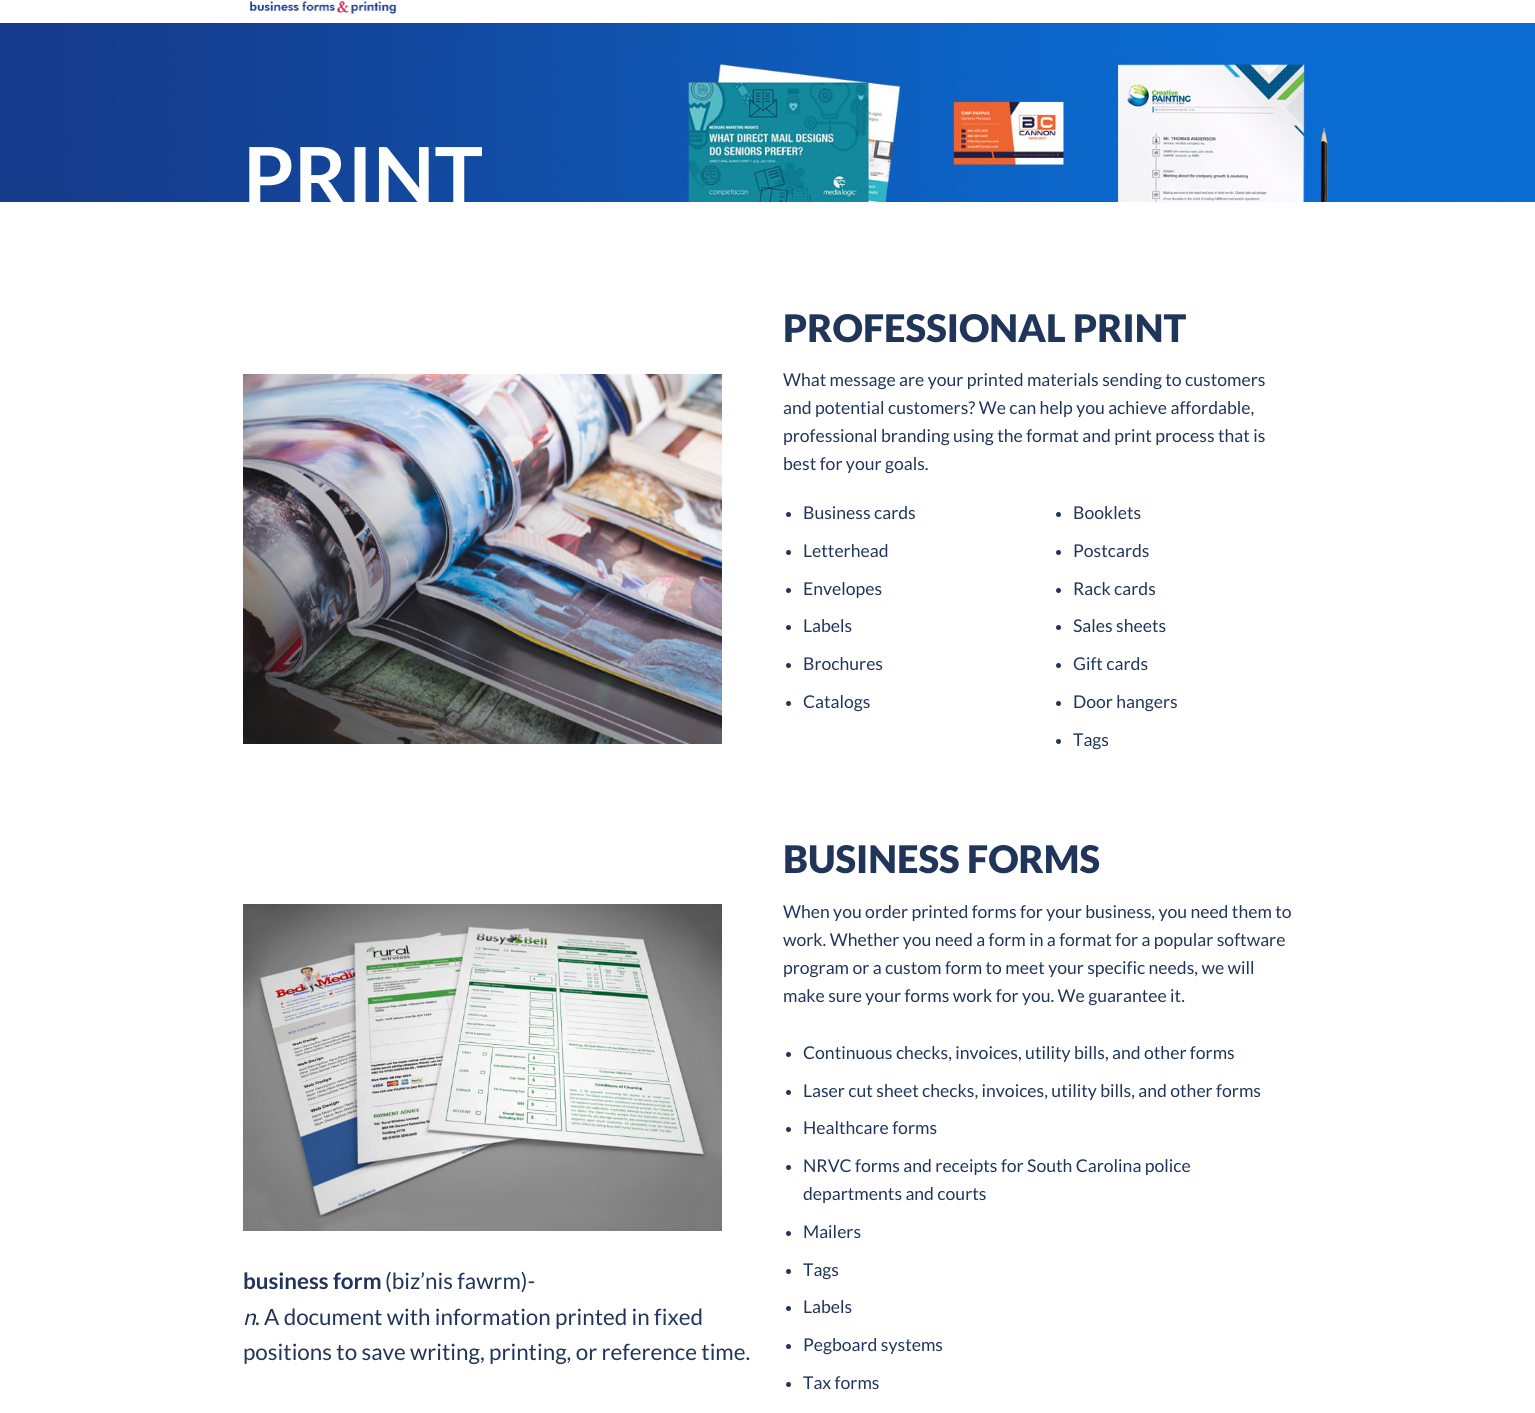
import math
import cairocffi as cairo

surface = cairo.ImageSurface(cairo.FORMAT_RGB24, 1535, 1413)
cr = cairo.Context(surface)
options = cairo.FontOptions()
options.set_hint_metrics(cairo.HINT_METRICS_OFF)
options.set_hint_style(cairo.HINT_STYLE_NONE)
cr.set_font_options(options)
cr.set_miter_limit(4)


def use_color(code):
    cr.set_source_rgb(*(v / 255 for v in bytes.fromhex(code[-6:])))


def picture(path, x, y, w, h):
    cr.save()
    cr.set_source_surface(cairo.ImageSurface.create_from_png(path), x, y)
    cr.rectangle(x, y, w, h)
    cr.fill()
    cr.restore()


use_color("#ffffff")
cr.paint()
picture("img1.png", 250, 1, 147, 13)
picture("img2.png", 0, 23, 1535, 182)
cr.set_source_rgba(0.129, 0.208, 0.353, 0.1)
cr.rectangle(243, 23, 1050, 1)
cr.fill()
cr.select_font_face("Lato", cairo.FONT_SLANT_NORMAL, cairo.FONT_WEIGHT_BOLD)
cr.set_font_size(81.5)
use_color("#ffffff")
cr.move_to(243, 206)
cr.show_text("PRINT")
picture("img3.png", 243, 374, 479, 370)
cr.select_font_face("Lato Black")
cr.set_font_size(38)
use_color("#21355a")
cr.move_to(783, 342)
cr.show_text("PROFESSIONAL PRINT")
cr.select_font_face("Lato")
cr.set_font_size(17.6)
cr.move_to(783, 386)
cr.show_text("What message are your printed materials sending to customers")
cr.move_to(783, 414)
cr.show_text("and potential customers? We can help you achieve affordable,")
cr.move_to(783, 442)
cr.show_text("professional branding using the format and print process that is")
cr.move_to(783, 470)
cr.show_text("best for your goals.")
cr.new_path()
cr.arc(788.5, 514.5, 2.5, 0, 2 * math.pi)
cr.fill()
cr.move_to(803, 519)
cr.show_text("Business cards")
cr.new_path()
cr.arc(788.5, 552.5, 2.5, 0, 2 * math.pi)
cr.fill()
cr.move_to(803, 557)
cr.show_text("Letterhead")
cr.new_path()
cr.arc(788.5, 590.5, 2.5, 0, 2 * math.pi)
cr.fill()
cr.move_to(803, 595)
cr.show_text("Envelopes")
cr.new_path()
cr.arc(788.5, 627.5, 2.5, 0, 2 * math.pi)
cr.fill()
cr.move_to(803, 632)
cr.show_text("Labels")
cr.new_path()
cr.arc(788.5, 665.5, 2.5, 0, 2 * math.pi)
cr.fill()
cr.move_to(803, 670)
cr.show_text("Brochures")
cr.new_path()
cr.arc(788.5, 703.5, 2.5, 0, 2 * math.pi)
cr.fill()
cr.move_to(803, 708)
cr.show_text("Catalogs")
cr.new_path()
cr.arc(1058.5, 514.5, 2.5, 0, 2 * math.pi)
cr.fill()
cr.move_to(1073, 519)
cr.show_text("Booklets")
cr.new_path()
cr.arc(1058.5, 552.5, 2.5, 0, 2 * math.pi)
cr.fill()
cr.move_to(1073, 557)
cr.show_text("Postcards")
cr.new_path()
cr.arc(1058.5, 590.5, 2.5, 0, 2 * math.pi)
cr.fill()
cr.move_to(1073, 595)
cr.show_text("Rack cards")
cr.new_path()
cr.arc(1058.5, 627.5, 2.5, 0, 2 * math.pi)
cr.fill()
cr.move_to(1073, 632)
cr.show_text("Sales sheets")
cr.new_path()
cr.arc(1058.5, 665.5, 2.5, 0, 2 * math.pi)
cr.fill()
cr.move_to(1073, 670)
cr.show_text("Gift cards")
cr.new_path()
cr.arc(1058.5, 703.5, 2.5, 0, 2 * math.pi)
cr.fill()
cr.move_to(1073, 708)
cr.show_text("Door hangers")
cr.new_path()
cr.arc(1058.5, 741.5, 2.5, 0, 2 * math.pi)
cr.fill()
cr.move_to(1073, 746)
cr.show_text("Tags")
picture("img4.png", 243, 904, 479, 327)
cr.select_font_face("Lato", cairo.FONT_SLANT_NORMAL, cairo.FONT_WEIGHT_BOLD)
cr.set_font_size(22.4)
cr.move_to(243, 1289)
cr.show_text("business form")
cr.select_font_face("Lato")
cr.move_to(385, 1289)
cr.show_text("(biz’nis fawrm)-")
cr.select_font_face("Lato", cairo.FONT_SLANT_ITALIC)
cr.move_to(243, 1325)
cr.show_text("n")
cr.select_font_face("Lato")
cr.move_to(255, 1325)
cr.show_text(". A document with information printed in fixed")
cr.move_to(243, 1360)
cr.show_text("positions to save writing, printing, or reference time.")
cr.select_font_face("Lato Black")
cr.set_font_size(38)
cr.move_to(783, 873)
cr.show_text("BUSINESS FORMS")
cr.select_font_face("Lato")
cr.set_font_size(17.6)
cr.move_to(783, 918)
cr.show_text("When you order printed forms for your business, you need them to")
cr.move_to(783, 946)
cr.show_text("work. Whether you need a form in a format for a popular software")
cr.move_to(783, 974)
cr.show_text("program or a custom form to meet your specific needs, we will")
cr.move_to(783, 1002)
cr.show_text("make sure your forms work for you. We guarantee it.")
cr.new_path()
cr.arc(788.5, 1054.5, 2.5, 0, 2 * math.pi)
cr.fill()
cr.move_to(803, 1059)
cr.show_text("Continuous checks, invoices, utility bills, and other forms")
cr.new_path()
cr.arc(788.5, 1092.5, 2.5, 0, 2 * math.pi)
cr.fill()
cr.move_to(803, 1097)
cr.show_text("Laser cut sheet checks, invoices, utility bills, and other forms")
cr.new_path()
cr.arc(788.5, 1129.5, 2.5, 0, 2 * math.pi)
cr.fill()
cr.move_to(803, 1134)
cr.show_text("Healthcare forms")
cr.new_path()
cr.arc(788.5, 1167.5, 2.5, 0, 2 * math.pi)
cr.fill()
cr.move_to(803, 1172)
cr.show_text("NRVC forms and receipts for South Carolina police")
cr.move_to(803, 1200)
cr.show_text("departments and courts")
cr.new_path()
cr.arc(788.5, 1233.5, 2.5, 0, 2 * math.pi)
cr.fill()
cr.move_to(803, 1238)
cr.show_text("Mailers")
cr.new_path()
cr.arc(788.5, 1271.5, 2.5, 0, 2 * math.pi)
cr.fill()
cr.move_to(803, 1276)
cr.show_text("Tags")
cr.new_path()
cr.arc(788.5, 1308.5, 2.5, 0, 2 * math.pi)
cr.fill()
cr.move_to(803, 1313)
cr.show_text("Labels")
cr.new_path()
cr.arc(788.5, 1346.5, 2.5, 0, 2 * math.pi)
cr.fill()
cr.move_to(803, 1351)
cr.show_text("Pegboard systems")
cr.new_path()
cr.arc(788.5, 1384.5, 2.5, 0, 2 * math.pi)
cr.fill()
cr.move_to(803, 1389)
cr.show_text("Tax forms")
surface.write_to_png("result.png")
